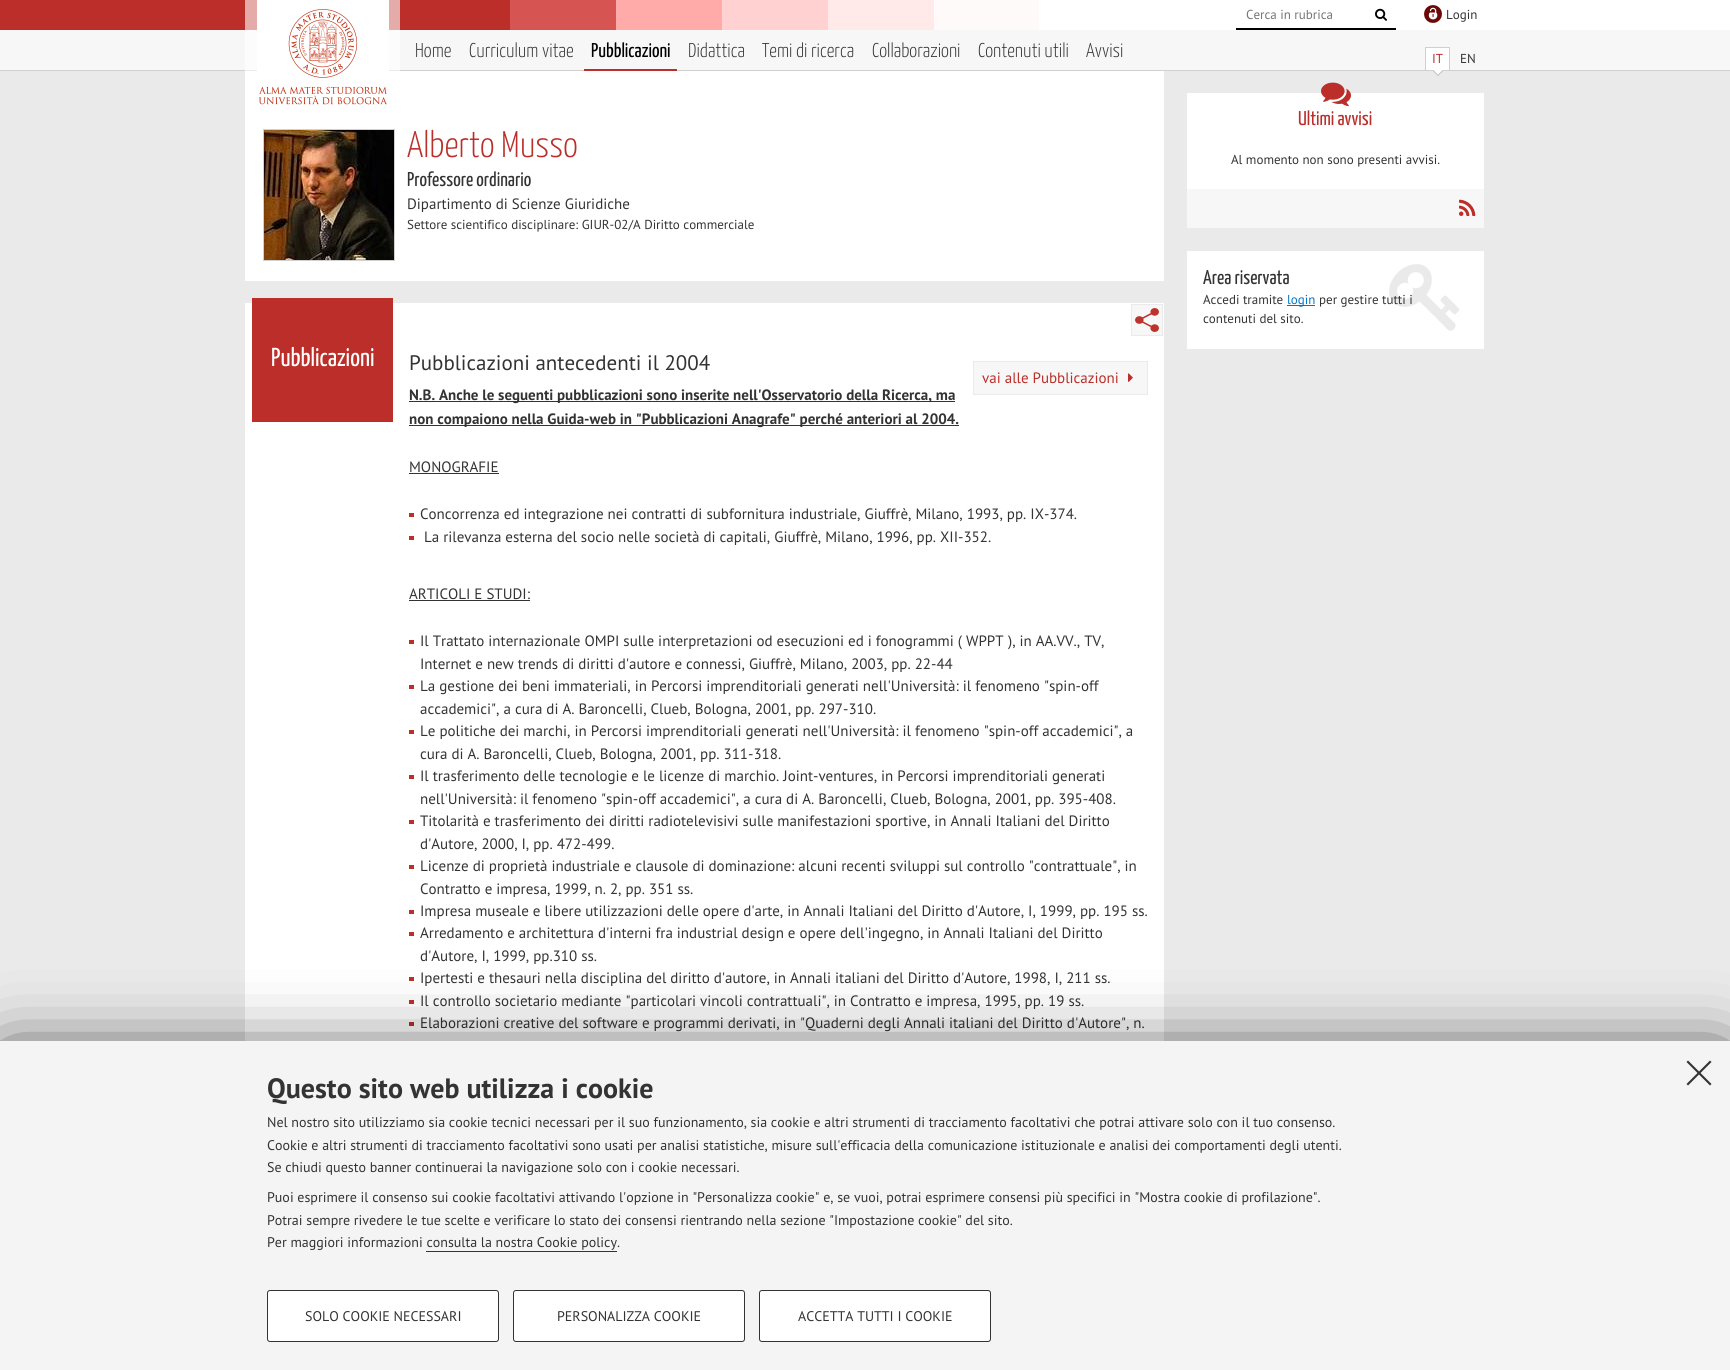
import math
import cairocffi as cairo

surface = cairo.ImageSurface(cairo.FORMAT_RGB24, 1730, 1370)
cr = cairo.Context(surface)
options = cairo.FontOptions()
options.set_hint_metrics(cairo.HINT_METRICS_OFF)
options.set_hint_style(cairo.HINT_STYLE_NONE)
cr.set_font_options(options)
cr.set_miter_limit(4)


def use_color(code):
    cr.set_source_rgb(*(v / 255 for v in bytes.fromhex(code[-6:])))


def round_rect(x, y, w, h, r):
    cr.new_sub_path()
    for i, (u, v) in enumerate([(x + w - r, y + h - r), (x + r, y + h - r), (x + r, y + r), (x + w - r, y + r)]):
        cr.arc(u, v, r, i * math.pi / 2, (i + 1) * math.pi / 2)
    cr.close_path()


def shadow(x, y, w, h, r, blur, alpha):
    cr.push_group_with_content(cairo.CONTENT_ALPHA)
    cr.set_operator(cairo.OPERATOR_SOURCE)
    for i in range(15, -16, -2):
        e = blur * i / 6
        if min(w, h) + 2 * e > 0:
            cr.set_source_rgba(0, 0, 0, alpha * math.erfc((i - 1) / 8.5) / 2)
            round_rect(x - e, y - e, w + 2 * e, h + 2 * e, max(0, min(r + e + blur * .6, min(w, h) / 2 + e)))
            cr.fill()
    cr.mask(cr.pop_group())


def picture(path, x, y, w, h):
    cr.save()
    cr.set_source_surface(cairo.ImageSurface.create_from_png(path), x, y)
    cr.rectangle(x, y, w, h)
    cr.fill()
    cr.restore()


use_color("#eaeaea")
cr.paint()
use_color("#bb2e29")
cr.rectangle(0, 0, 510, 30)
cr.fill()
use_color("#e4aba9")
cr.rectangle(245, 0, 155, 30)
cr.fill()
use_color("#ffffff")
cr.rectangle(1039, 0, 691, 30)
cr.fill()
picture("img1.png", 510, 0, 529, 30)
use_color("#f7f7f7")
cr.rectangle(0, 30, 1730, 40)
cr.fill()
use_color("#fcfcfc")
cr.rectangle(245, 30, 155, 40)
cr.fill()
use_color("#d0d0d0")
cr.rectangle(0, 70, 1730, 1)
cr.fill()
use_color("#ececec")
cr.rectangle(245, 70, 155, 1)
cr.fill()
use_color("#ffffff")
cr.rectangle(245, 71, 919, 210)
cr.fill()
picture("img2.png", 257, 0, 132, 105)
use_color("#000000")
cr.rectangle(1236, 28, 160, 2)
cr.fill()
cr.select_font_face("PT Sans")
cr.set_font_size(13)
use_color("#757575")
cr.move_to(1246, 19)
cr.show_text("Cerca in rubrica")
picture("img3.png", 1375, 8, 12, 13)
picture("img4.png", 1424, 5, 18, 18)
use_color("#333333")
cr.move_to(1446, 19)
cr.show_text("Login")
cr.select_font_face("Yanone Kaffeesatz Light")
cr.set_font_size(20)
cr.move_to(415, 57)
cr.show_text("Home")
cr.move_to(469, 57)
cr.show_text("Curriculum vitae")
use_color("#bb2e29")
cr.rectangle(584, 69, 93, 2)
cr.fill()
cr.select_font_face("Yanone Kaffeesatz")
use_color("#000000")
cr.move_to(591, 57)
cr.show_text("Pubblicazioni")
cr.select_font_face("Yanone Kaffeesatz Light")
use_color("#333333")
cr.move_to(688, 57)
cr.show_text("Didattica")
cr.move_to(762, 57)
cr.show_text("Temi di ricerca")
cr.move_to(872, 57)
cr.show_text("Collaborazioni")
cr.move_to(978, 57)
cr.show_text("Contenuti utili")
cr.move_to(1086, 57)
cr.show_text("Avvisi")
use_color("#ffffff")
cr.rectangle(1426, 48, 23, 22)
cr.fill()
use_color("#d0d0d0")
cr.rectangle(1425, 47, 25, 1)
cr.fill()
cr.rectangle(1449, 47, 1, 23)
cr.fill()
cr.rectangle(1425, 47, 1, 23)
cr.fill()
cr.select_font_face("PT Sans")
cr.set_font_size(13)
use_color("#bb2e29")
cr.move_to(1432, 63)
cr.show_text("IT")
picture("img5.png", 1433, 70, 10, 6)
use_color("#333333")
cr.move_to(1460, 63)
cr.show_text("EN")
cr.rectangle(263.5, 129.5, 131, 131)
use_color("#d0d0d0")
cr.set_line_width(1)
cr.stroke()
picture("img6.png", 264, 130, 130, 130)
cr.select_font_face("Yanone Kaffeesatz Light")
cr.set_font_size(37)
use_color("#bb2e29")
cr.move_to(407, 157)
cr.show_text("Alberto Musso")
cr.select_font_face("Yanone Kaffeesatz")
cr.set_font_size(20)
use_color("#333333")
cr.move_to(407, 186)
cr.show_text("Professore ordinario")
cr.select_font_face("PT Sans")
cr.set_font_size(15)
cr.move_to(407, 209)
cr.show_text("Dipartimento di Scienze Giuridiche")
cr.set_font_size(13)
cr.move_to(407, 229)
cr.show_text("Settore scientifico disciplinare: GIUR-02/A Diritto commerciale")
use_color("#ffffff")
cr.rectangle(245, 303, 919, 738)
cr.fill()
use_color("#f7f7f7")
cr.rectangle(1132, 305, 30, 30)
cr.fill()
picture("img7.png", 1135, 308, 24, 24)
cr.rectangle(1131.5, 304.5, 31, 31)
use_color("#eaeaea")
cr.stroke()
use_color("#bb2e29")
cr.rectangle(252, 298, 141, 124)
cr.fill()
cr.select_font_face("Yanone Kaffeesatz")
cr.set_font_size(26)
use_color("#ffffff")
cr.move_to(271, 366)
cr.show_text("Pubblicazioni")
cr.select_font_face("PT Sans")
cr.set_font_size(21)
use_color("#333333")
cr.move_to(409, 370)
cr.show_text("Pubblicazioni antecedenti il 2004")
use_color("#f7f7f7")
cr.rectangle(973.5, 361.5, 174, 33)
cr.fill_preserve()
use_color("#eaeaea")
cr.stroke()
cr.set_font_size(15)
use_color("#bb2e29")
cr.move_to(982, 383)
cr.show_text("vai alle Pubblicazioni")
picture("img8.png", 1128, 373, 5, 9)
use_color("#333333")
cr.rectangle(409, 401, 546, 1)
cr.fill()
cr.select_font_face("PT Sans", cairo.FONT_SLANT_NORMAL, cairo.FONT_WEIGHT_BOLD)
cr.move_to(409, 400)
cr.show_text("N.B. Anche le seguenti pubblicazioni sono inserite nell'Osservatorio della Ricerca, ma")
cr.rectangle(409, 425, 550, 1)
cr.fill()
cr.move_to(409, 424)
cr.show_text("non compaiono nella Guida-web in \"Pubblicazioni Anagrafe\" perché anteriori al 2004.")
cr.select_font_face("PT Sans")
cr.move_to(409, 472)
cr.show_text("MONOGRAFIE")
cr.rectangle(409, 473, 90, 1)
cr.fill()
use_color("#bc2e29")
cr.rectangle(409, 513, 5, 4)
cr.fill()
use_color("#333333")
cr.move_to(420, 519)
cr.show_text("Concorrenza ed integrazione nei contratti di subfornitura industriale, Giuffrè, Milano, 1993, pp. IX-374.")
use_color("#bc2e29")
cr.rectangle(409, 536, 5, 4)
cr.fill()
use_color("#333333")
cr.move_to(424, 542)
cr.show_text("La rilevanza esterna del socio nelle società di capitali, Giuffrè, Milano, 1996, pp. XII-352.")
cr.move_to(409, 599)
cr.show_text("ARTICOLI E STUDI:")
cr.rectangle(409, 600, 121, 1)
cr.fill()
use_color("#bc2e29")
cr.rectangle(409, 640, 5, 4)
cr.fill()
use_color("#333333")
cr.move_to(420, 646)
cr.show_text("Il Trattato internazionale OMPI sulle interpretazioni od esecuzioni ed i fonogrammi (")
cr.move_to(966, 646)
cr.show_text("WPPT")
cr.move_to(1008, 646)
cr.show_text("), in AA.VV., TV,")
cr.move_to(420, 669)
cr.show_text("Internet e new trends di diritti d'autore e connessi, Giuffrè, Milano, 2003, pp. 22-44")
use_color("#bc2e29")
cr.rectangle(409, 685, 5, 4)
cr.fill()
use_color("#333333")
cr.move_to(420, 691)
cr.show_text("La gestione dei beni immateriali, in Percorsi imprenditoriali generati nell'Università: il fenomeno \"spin-off")
cr.move_to(420, 714)
cr.show_text("accademici\", a cura di A. Baroncelli, Clueb, Bologna, 2001, pp. 297-310.")
use_color("#bc2e29")
cr.rectangle(409, 730, 5, 4)
cr.fill()
use_color("#333333")
cr.move_to(420, 736)
cr.show_text("Le politiche dei marchi, in Percorsi imprenditoriali generati nell'Università: il fenomeno \"spin-off accademici\", a")
cr.move_to(420, 759)
cr.show_text("cura di A. Baroncelli, Clueb, Bologna, 2001, pp. 311-318.")
use_color("#bc2e29")
cr.rectangle(409, 775, 5, 4)
cr.fill()
use_color("#333333")
cr.move_to(420, 781)
cr.show_text("Il trasferimento delle tecnologie e le licenze di marchio. Joint-ventures, in Percorsi imprenditoriali generati")
cr.move_to(420, 804)
cr.show_text("nell'Università: il fenomeno \"spin-off accademici\", a cura di A. Baroncelli, Clueb, Bologna, 2001, pp. 395-408.")
use_color("#bc2e29")
cr.rectangle(409, 820, 5, 4)
cr.fill()
use_color("#333333")
cr.move_to(420, 826)
cr.show_text("Titolarità e trasferimento dei diritti radiotelevisivi sulle manifestazioni sportive, in Annali Italiani del Diritto")
cr.move_to(420, 849)
cr.show_text("d'Autore, 2000, I, pp. 472-499.")
use_color("#bc2e29")
cr.rectangle(409, 865, 5, 4)
cr.fill()
use_color("#333333")
cr.move_to(420, 871)
cr.show_text("Licenze di proprietà industriale e clausole di dominazione: alcuni recenti sviluppi sul controllo \"contrattuale\", in")
cr.move_to(420, 894)
cr.show_text("Contratto e impresa, 1999, n. 2, pp. 351 ss.")
use_color("#bc2e29")
cr.rectangle(409, 910, 5, 4)
cr.fill()
use_color("#333333")
cr.move_to(420, 916)
cr.show_text("Impresa museale e libere utilizzazioni delle opere d'arte, in Annali Italiani del Diritto d'Autore, I, 1999, pp. 195 ss.")
use_color("#bc2e29")
cr.rectangle(409, 932, 5, 4)
cr.fill()
use_color("#333333")
cr.move_to(420, 938)
cr.show_text("Arredamento e architettura d'interni fra industrial design e opere dell'ingegno, in Annali Italiani del Diritto")
cr.move_to(420, 961)
cr.show_text("d'Autore, I, 1999, pp.310 ss.")
use_color("#bc2e29")
cr.rectangle(409, 977, 5, 4)
cr.fill()
use_color("#333333")
cr.move_to(420, 983)
cr.show_text("Ipertesti e thesauri nella disciplina del diritto d'autore, in Annali italiani del Diritto d'Autore, 1998, I, 211 ss.")
use_color("#bc2e29")
cr.rectangle(409, 1000, 5, 4)
cr.fill()
use_color("#333333")
cr.move_to(420, 1006)
cr.show_text("Il controllo societario mediante \"particolari vincoli contrattuali\", in Contratto e impresa, 1995, pp. 19 ss.")
use_color("#bc2e29")
cr.rectangle(409, 1022, 5, 4)
cr.fill()
use_color("#333333")
cr.move_to(420, 1028)
cr.show_text("Elaborazioni creative del software e programmi derivati, in \"Quaderni degli Annali italiani del Diritto d'Autore\", n.")
use_color("#ffffff")
cr.rectangle(1187, 93, 297, 96)
cr.fill()
picture("img9.png", 1321, 82, 30, 25)
cr.select_font_face("Yanone Kaffeesatz")
cr.set_font_size(20)
use_color("#bb2e29")
cr.move_to(1298, 125)
cr.show_text("Ultimi avvisi")
cr.select_font_face("PT Sans")
cr.set_font_size(13)
use_color("#333333")
cr.move_to(1231, 164)
cr.show_text("Al momento non sono presenti avvisi.")
use_color("#f7f7f7")
cr.rectangle(1187, 189, 297, 39)
cr.fill()
picture("img10.png", 1459, 199, 17, 17)
use_color("#ffffff")
cr.rectangle(1187, 251, 297, 98)
cr.fill()
cr.select_font_face("Yanone Kaffeesatz")
cr.set_font_size(20)
use_color("#333333")
cr.move_to(1203, 284)
cr.show_text("Area riservata")
picture("img11.png", 1389, 264, 71, 67)
cr.select_font_face("PT Sans")
cr.set_font_size(13)
cr.move_to(1203, 304)
cr.show_text("Accedi tramite")
use_color("#0077cc")
cr.rectangle(1287, 305, 28, 1)
cr.fill()
cr.move_to(1287, 304)
cr.show_text("login")
use_color("#333333")
cr.move_to(1319, 304)
cr.show_text("per gestire tutti i")
cr.move_to(1203, 323)
cr.show_text("contenuti del sito.")
use_color("#000000")
shadow(7, 1063, 1716, 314, 0, 37.5, 1)
use_color("#f4f4f4")
cr.rectangle(0, 1041, 1730, 329)
cr.fill()
use_color("#333333")
cr.new_path()
cr.move_to(1710, 1060.5)
cr.line_to(1711.5, 1062)
cr.line_to(1688, 1085.5)
cr.line_to(1686.5, 1084)
cr.close_path()
cr.fill()
cr.new_path()
cr.move_to(1686.5, 1062)
cr.line_to(1688, 1060.5)
cr.line_to(1711.5, 1084)
cr.line_to(1710, 1085.5)
cr.close_path()
cr.fill()
cr.select_font_face("PT Sans", cairo.FONT_SLANT_NORMAL, cairo.FONT_WEIGHT_BOLD)
cr.set_font_size(28)
cr.move_to(267, 1098)
cr.show_text("Questo sito web utilizza i cookie")
cr.select_font_face("PT Sans")
cr.set_font_size(14)
cr.move_to(267, 1127)
cr.show_text("Nel nostro sito utilizziamo sia cookie tecnici necessari per il suo funzionamento, sia cookie e altri strumenti di tracciamento facoltativi che potrai attivare solo con il tuo consenso.")
cr.move_to(267, 1150)
cr.show_text("Cookie e altri strumenti di tracciamento facoltativi sono usati per analisi statistiche, misure sull'efficacia della comunicazione istituzionale e analisi dei comportamenti degli utenti.")
cr.move_to(267, 1172)
cr.show_text("Se chiudi questo banner continuerai la navigazione solo con i cookie necessari.")
cr.move_to(267, 1202)
cr.show_text("Puoi esprimere il consenso sui cookie facoltativi attivando l'opzione in \"Personalizza cookie\" e, se vuoi, potrai esprimere consensi più specifici in \"Mostra cookie di profilazione\".")
cr.move_to(267, 1225)
cr.show_text("Potrai sempre rivedere le tue scelte e verificare lo stato dei consensi rientrando nella sezione \"Impostazione cookie\" del sito.")
cr.move_to(267, 1247)
cr.show_text("Per maggiori informazioni consulta la nostra Cookie policy.")
cr.rectangle(426, 1251, 191, 1)
cr.fill()
use_color("#ffffff")
round_rect(267.5, 1290.5, 231, 51, 2.5)
cr.fill_preserve()
use_color("#333333")
cr.stroke()
cr.move_to(305, 1321)
cr.show_text("SOLO COOKIE NECESSARI")
use_color("#ffffff")
round_rect(513.5, 1290.5, 231, 51, 2.5)
cr.fill_preserve()
use_color("#333333")
cr.stroke()
cr.move_to(557, 1321)
cr.show_text("PERSONALIZZA COOKIE")
use_color("#ffffff")
round_rect(759.5, 1290.5, 231, 51, 2.5)
cr.fill_preserve()
use_color("#333333")
cr.stroke()
cr.move_to(798, 1321)
cr.show_text("ACCETTA TUTTI I COOKIE")
surface.write_to_png("result.png")
